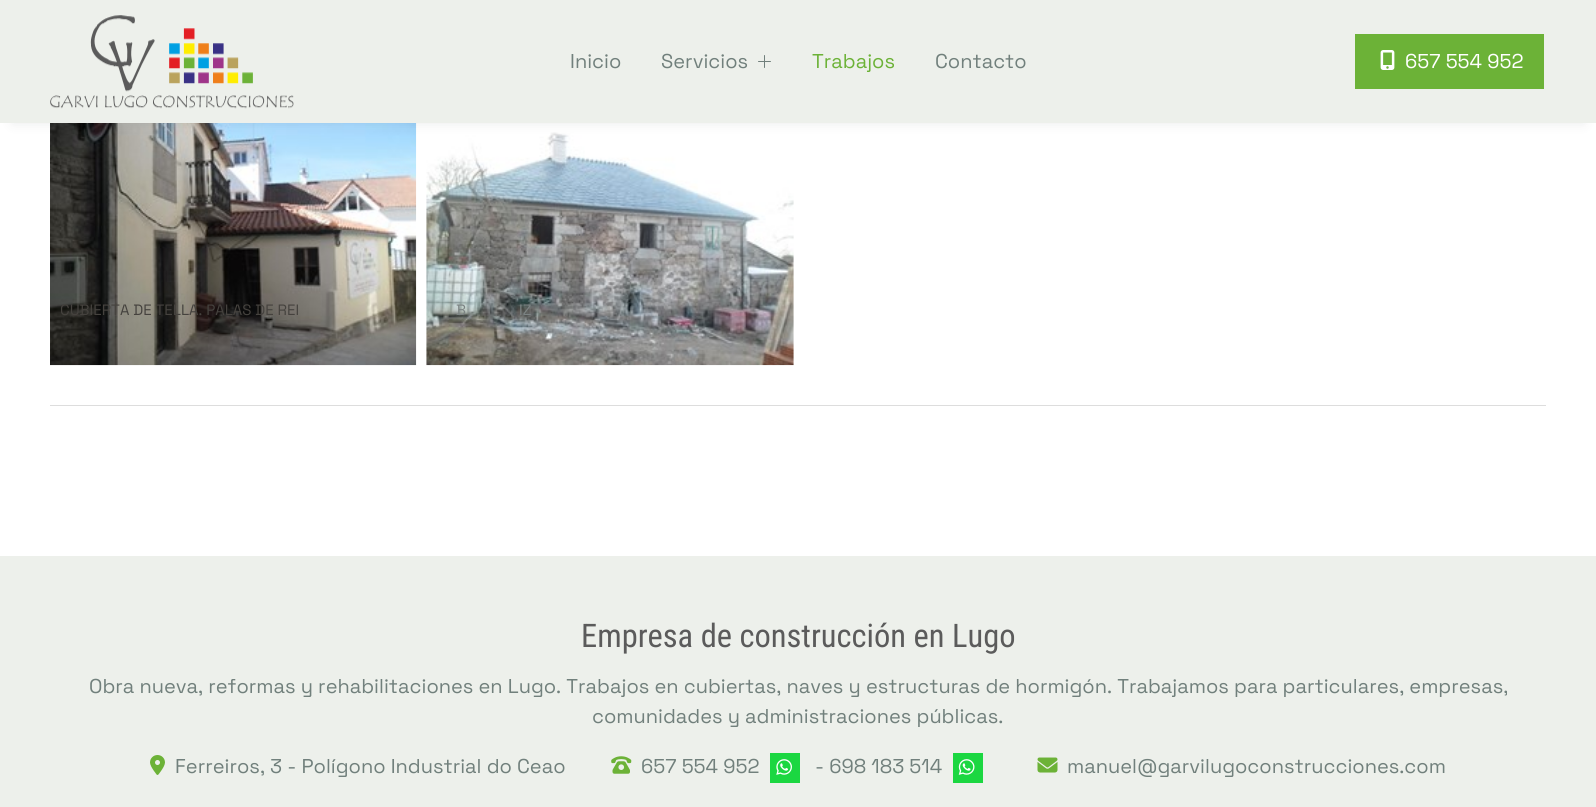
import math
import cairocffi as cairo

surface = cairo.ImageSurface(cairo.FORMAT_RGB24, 1596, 807)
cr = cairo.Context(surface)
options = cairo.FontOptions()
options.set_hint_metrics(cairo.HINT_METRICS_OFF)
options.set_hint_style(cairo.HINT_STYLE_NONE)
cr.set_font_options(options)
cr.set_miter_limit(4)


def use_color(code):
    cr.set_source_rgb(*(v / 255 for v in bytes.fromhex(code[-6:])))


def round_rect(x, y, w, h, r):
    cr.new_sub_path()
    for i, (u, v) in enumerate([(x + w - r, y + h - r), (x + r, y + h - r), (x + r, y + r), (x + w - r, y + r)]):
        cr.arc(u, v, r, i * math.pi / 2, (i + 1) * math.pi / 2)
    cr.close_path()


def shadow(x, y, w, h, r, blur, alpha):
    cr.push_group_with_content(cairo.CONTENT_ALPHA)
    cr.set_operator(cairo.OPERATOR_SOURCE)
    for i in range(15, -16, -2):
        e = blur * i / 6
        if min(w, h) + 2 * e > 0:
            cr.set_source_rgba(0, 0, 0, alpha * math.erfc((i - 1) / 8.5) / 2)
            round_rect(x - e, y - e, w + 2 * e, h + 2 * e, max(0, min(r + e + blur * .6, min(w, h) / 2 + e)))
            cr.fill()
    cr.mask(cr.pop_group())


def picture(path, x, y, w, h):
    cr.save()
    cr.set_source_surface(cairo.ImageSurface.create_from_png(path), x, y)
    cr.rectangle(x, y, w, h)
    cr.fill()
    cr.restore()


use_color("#ffffff")
cr.paint()
picture("img4.png", 50, 123, 367, 243)
picture("img5.png", 426, 132, 368, 234)
use_color("#212b35")
shadow(13, 25, 1571, 98, 0, 6, 0.1)
use_color("#edf0eb")
cr.rectangle(0, 0, 1596, 123)
cr.fill()
picture("img1.png", 50, 15, 244, 94)
cr.select_font_face("Space Grotesk")
cr.set_font_size(20)
use_color("#71807c")
cr.move_to(570, 68)
cr.show_text("Inicio")
cr.move_to(661, 68)
cr.show_text("Servicios")
picture("img2.png", 758, 55, 13, 13)
use_color("#6cb237")
cr.move_to(812, 68)
cr.show_text("Trabajos")
use_color("#71807c")
cr.move_to(935, 68)
cr.show_text("Contacto")
use_color("#6cb237")
cr.rectangle(1355, 34, 189, 55)
cr.fill()
picture("img3.png", 1380, 50, 15, 20)
use_color("#ffffff")
cr.move_to(1405, 68)
cr.show_text("657 554 952")
cr.set_font_size(15)
use_color("#45423e")
cr.move_to(60, 315)
cr.show_text("CUBIERTA DE TELLA. PALAS DE REI")
use_color("#7c8383")
cr.move_to(456, 315)
cr.show_text("B")
cr.move_to(519, 315)
cr.show_text("IZ")
use_color("#dddddd")
cr.rectangle(50, 405, 1496, 1)
cr.fill()
use_color("#edf0eb")
cr.rectangle(0, 556, 1596, 251)
cr.fill()
cr.select_font_face("Roboto Condensed")
cr.set_font_size(32.5)
use_color("#5b5b5b")
cr.move_to(581, 647)
cr.show_text("Empresa de construcción en Lugo")
cr.select_font_face("Space Grotesk")
cr.set_font_size(20)
use_color("#71807c")
cr.move_to(89, 693)
cr.show_text("Obra nueva, reformas y rehabilitaciones en Lugo. Trabajos en cubiertas, naves y estructuras de hormigón. Trabajamos para particulares, empresas,")
cr.move_to(592, 723)
cr.show_text("comunidades y administraciones públicas.")
picture("img6.png", 150, 755, 15, 20)
cr.move_to(175, 773)
cr.show_text("Ferreiros, 3 - Polígono Industrial do Ceao")
picture("img7.png", 611, 756, 21, 18)
cr.move_to(641, 773)
cr.show_text("657 554 952")
use_color("#1bd741")
cr.rectangle(770, 753, 30, 30)
cr.fill()
picture("img8.png", 776, 759, 16, 16)
use_color("#71807c")
cr.move_to(815, 773)
cr.show_text("- 698 183 514")
use_color("#1bd741")
cr.rectangle(953, 753, 30, 30)
cr.fill()
picture("img9.png", 958, 759, 17, 16)
picture("img10.png", 1037, 757, 21, 16)
use_color("#71807c")
cr.move_to(1067, 773)
cr.show_text("manuel@garvilugoconstrucciones.com")
surface.write_to_png("result.png")
